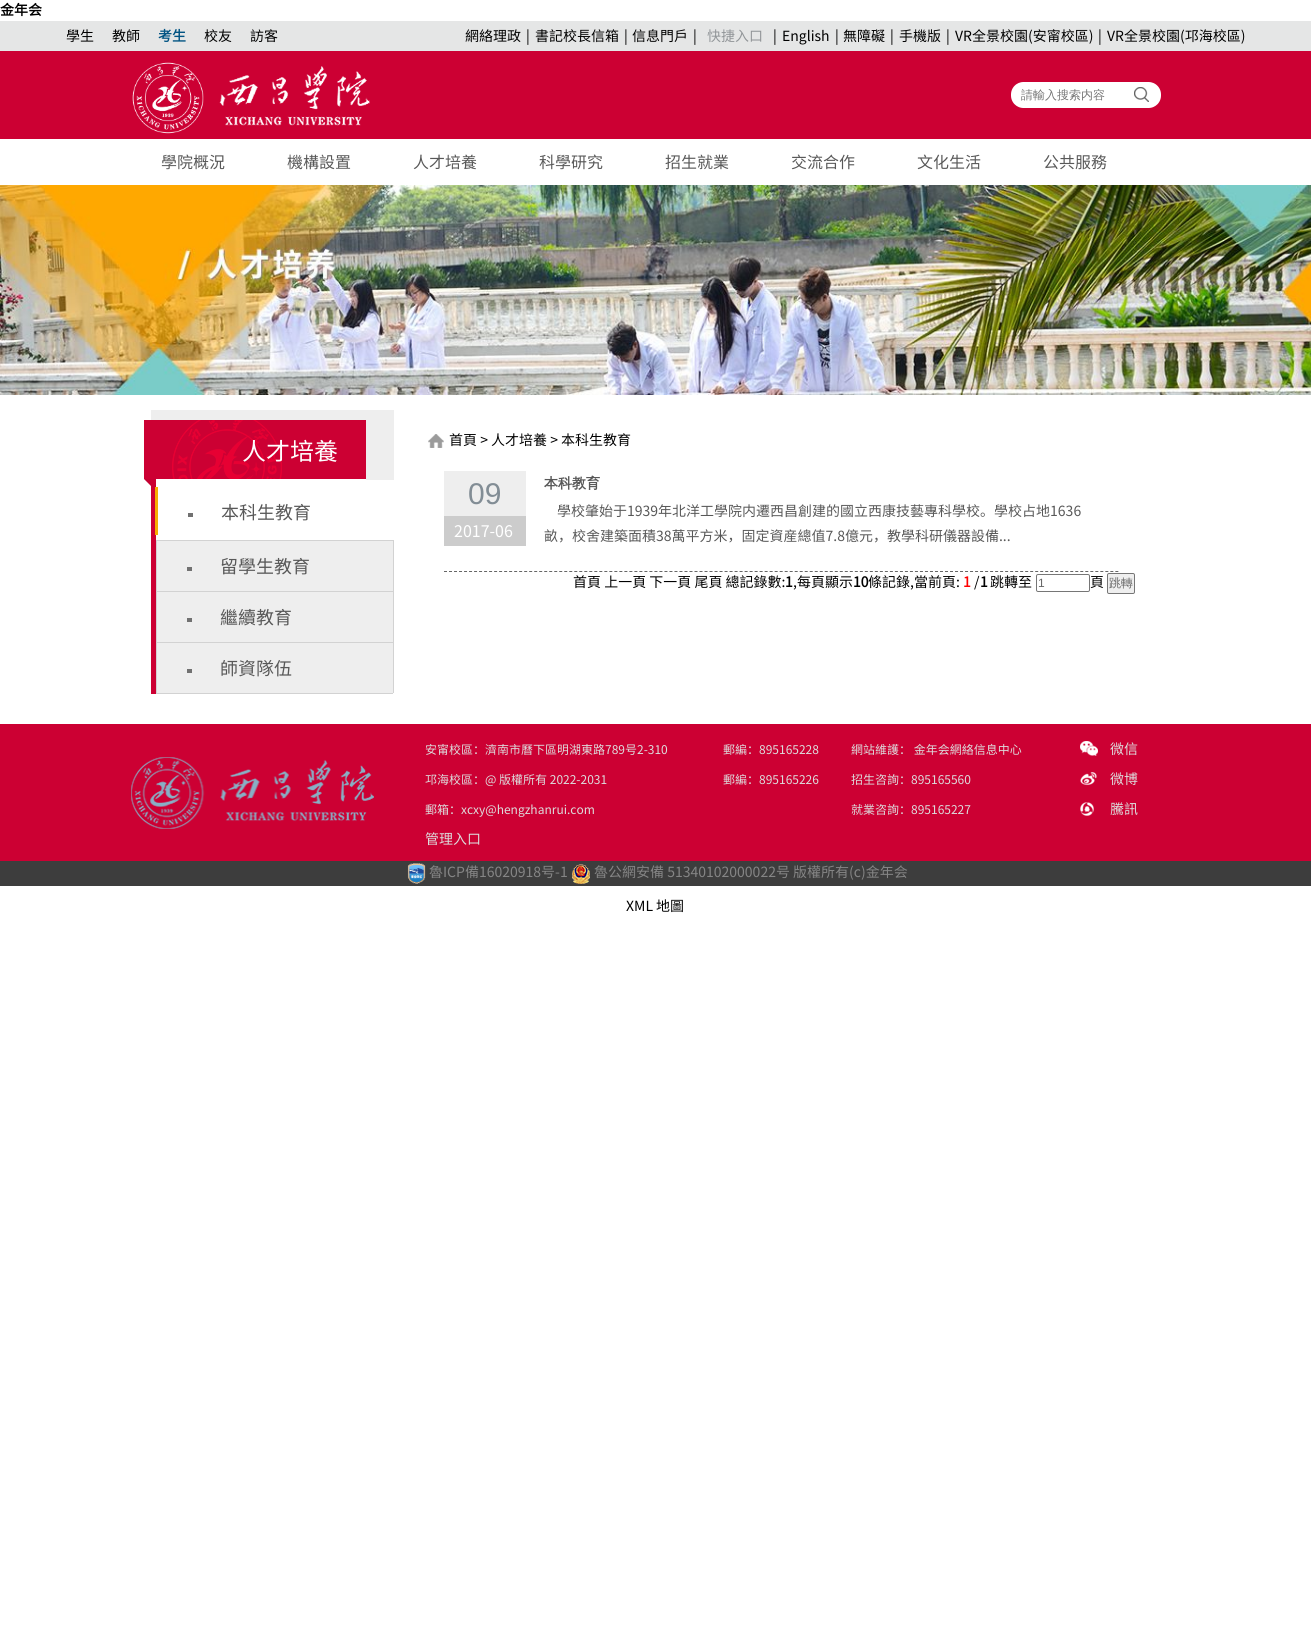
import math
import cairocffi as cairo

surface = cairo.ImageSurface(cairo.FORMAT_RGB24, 1311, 1631)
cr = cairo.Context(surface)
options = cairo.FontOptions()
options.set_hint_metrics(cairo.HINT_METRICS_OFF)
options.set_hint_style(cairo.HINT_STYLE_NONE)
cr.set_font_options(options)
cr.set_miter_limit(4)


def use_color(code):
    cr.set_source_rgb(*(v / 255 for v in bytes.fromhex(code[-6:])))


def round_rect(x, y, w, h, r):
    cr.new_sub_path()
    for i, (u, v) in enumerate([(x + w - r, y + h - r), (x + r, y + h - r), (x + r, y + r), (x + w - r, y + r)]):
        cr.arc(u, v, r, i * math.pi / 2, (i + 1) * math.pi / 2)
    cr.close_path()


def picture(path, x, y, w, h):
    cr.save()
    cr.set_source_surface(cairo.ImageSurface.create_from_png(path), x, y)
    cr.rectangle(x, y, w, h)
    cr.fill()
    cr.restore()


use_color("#ffffff")
cr.paint()
cr.select_font_face("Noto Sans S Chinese", cairo.FONT_SLANT_NORMAL, cairo.FONT_WEIGHT_BOLD)
cr.set_font_size(14)
use_color("#000000")
cr.move_to(0, 15)
cr.show_text("金年会")
use_color("#e5e6e6")
cr.rectangle(0, 21, 1311, 30)
cr.fill()
cr.select_font_face("Noto Sans S Chinese")
use_color("#000000")
cr.move_to(66, 41)
cr.show_text("學生")
cr.move_to(112, 41)
cr.show_text("教師")
cr.select_font_face("Noto Sans S Chinese", cairo.FONT_SLANT_NORMAL, cairo.FONT_WEIGHT_BOLD)
use_color("#025483")
cr.move_to(158, 41)
cr.show_text("考生")
cr.select_font_face("Noto Sans S Chinese")
use_color("#000000")
cr.move_to(204, 41)
cr.show_text("校友")
cr.move_to(250, 41)
cr.show_text("訪客")
cr.move_to(465, 41)
cr.show_text("網絡理政")
cr.move_to(526, 41)
cr.show_text("|")
cr.move_to(535, 41)
cr.show_text("書記校長信箱")
cr.move_to(624, 41)
cr.show_text("|")
cr.move_to(632, 41)
cr.show_text("信息門戶")
cr.move_to(693, 41)
cr.show_text("|")
use_color("#919598")
cr.move_to(707, 41)
cr.show_text("快捷入口")
use_color("#000000")
cr.move_to(773, 41)
cr.show_text("|")
cr.move_to(782, 41)
cr.show_text("English")
cr.move_to(835, 41)
cr.show_text("|")
cr.move_to(843, 41)
cr.show_text("無障礙")
cr.move_to(890, 41)
cr.show_text("|")
cr.move_to(899, 41)
cr.show_text("手機版")
cr.move_to(946, 41)
cr.show_text("|")
cr.move_to(955, 41)
cr.show_text("VR全景校園(安甯校區)")
cr.move_to(1098, 41)
cr.show_text("|")
cr.move_to(1107, 41)
cr.show_text("VR全景校園(邛海校區)")
use_color("#cc0033")
cr.rectangle(0, 51, 1311, 88)
cr.fill()
picture("img1.png", 132, 62, 238, 72)
picture("img2.png", 1011, 82, 150, 26)
cr.save()
cr.rectangle(1021, 87, 130, 17)
cr.clip()
cr.select_font_face("WenQuanYi Zen Hei Medium")
cr.set_font_size(12)
use_color("#757575")
cr.move_to(1021, 99)
cr.show_text("請輸入搜索内容")
cr.restore()
picture("img3.png", 1134, 87, 15, 15)
cr.set_font_size(16)
use_color("#585858")
cr.move_to(161, 168)
cr.show_text("學院概況")
cr.move_to(287, 168)
cr.show_text("機構設置")
cr.move_to(413, 168)
cr.show_text("人才培養")
cr.move_to(539, 168)
cr.show_text("科學研究")
cr.move_to(665, 168)
cr.show_text("招生就業")
cr.move_to(791, 168)
cr.show_text("交流合作")
cr.move_to(917, 168)
cr.show_text("文化生活")
cr.move_to(1043, 168)
cr.show_text("公共服務")
picture("img4.png", 0, 185, 1311, 210)
use_color("#eeeeee")
cr.rectangle(151, 410, 243, 70)
cr.fill()
picture("img5.png", 144, 420, 222, 71)
cr.set_font_size(24)
use_color("#ffffff")
cr.move_to(242, 460)
cr.show_text("人才培養")
use_color("#cc0033")
cr.rectangle(151, 480, 5, 214)
cr.fill()
use_color("#d2d2d2")
cr.rectangle(156, 693, 237, 1)
cr.fill()
use_color("#f7ab00")
cr.rectangle(155, 487, 3, 48)
cr.fill()
use_color("#717171")
cr.rectangle(188, 513, 5, 4)
cr.fill()
cr.set_font_size(18)
use_color("#585858")
cr.move_to(221, 519)
cr.show_text("本科生教育")
use_color("#eeeeee")
cr.rectangle(157, 541, 236, 50)
cr.fill()
use_color("#d2d2d2")
cr.rectangle(156, 540, 238, 1)
cr.fill()
cr.rectangle(393, 540, 1, 51)
cr.fill()
cr.rectangle(156, 540, 1, 51)
cr.fill()
use_color("#717171")
cr.rectangle(187, 567, 5, 4)
cr.fill()
use_color("#585858")
cr.move_to(220, 573)
cr.show_text("留學生教育")
use_color("#eeeeee")
cr.rectangle(157, 592, 236, 50)
cr.fill()
use_color("#d2d2d2")
cr.rectangle(156, 591, 238, 1)
cr.fill()
cr.rectangle(393, 591, 1, 51)
cr.fill()
cr.rectangle(156, 591, 1, 51)
cr.fill()
use_color("#717171")
cr.rectangle(187, 618, 5, 4)
cr.fill()
use_color("#585858")
cr.move_to(220, 624)
cr.show_text("繼續教育")
use_color("#eeeeee")
cr.rectangle(157, 643, 236, 50)
cr.fill()
use_color("#d2d2d2")
cr.rectangle(156, 642, 238, 1)
cr.fill()
cr.rectangle(393, 642, 1, 51)
cr.fill()
cr.rectangle(156, 642, 1, 51)
cr.fill()
use_color("#717171")
cr.rectangle(187, 669, 5, 4)
cr.fill()
use_color("#585858")
cr.move_to(220, 675)
cr.show_text("師資隊伍")
picture("img6.png", 428, 434, 16, 14)
cr.set_font_size(14)
use_color("#000000")
cr.move_to(449, 445)
cr.show_text("首頁 > 人才培養 > 本科生教育")
cr.new_path()
cr.move_to(444, 571.5)
cr.line_to(1119, 571.5)
use_color("#666666")
cr.set_line_width(1)
cr.set_dash([3, 2.01])
cr.stroke()
use_color("#eeeeee")
cr.rectangle(444, 471, 82, 45)
cr.fill()
cr.select_font_face("Liberation Sans")
cr.set_font_size(30)
use_color("#828d95")
cr.move_to(468, 504)
cr.show_text("09")
use_color("#cccccc")
cr.rectangle(444, 516, 82, 30)
cr.fill()
cr.select_font_face("Noto Sans S Chinese")
cr.set_font_size(16)
use_color("#ffffff")
cr.move_to(454, 537)
cr.show_text("2017-06")
cr.select_font_face("WenQuanYi Zen Hei", cairo.FONT_SLANT_NORMAL, cairo.FONT_WEIGHT_BOLD)
cr.set_font_size(14)
use_color("#585858")
cr.move_to(544, 488)
cr.show_text("本科教育")
cr.select_font_face("Noto Sans S Chinese")
cr.move_to(557, 516)
cr.show_text("學校肇始于1939年北洋工學院内遷西昌創建的國立西康技藝專科學校。學校占地1636")
cr.move_to(544, 541)
cr.show_text("畝，校舍建築面積38萬平方米，固定資産總值7.8億元，教學科研儀器設備...")
use_color("#000000")
cr.move_to(573, 587)
cr.show_text("首頁 上一頁 下一頁 尾頁 總記錄數:")
cr.select_font_face("Noto Sans S Chinese", cairo.FONT_SLANT_NORMAL, cairo.FONT_WEIGHT_BOLD)
cr.move_to(785, 587)
cr.show_text("1")
cr.select_font_face("Noto Sans S Chinese")
cr.move_to(793, 587)
cr.show_text(",每頁顯示")
cr.select_font_face("Noto Sans S Chinese", cairo.FONT_SLANT_NORMAL, cairo.FONT_WEIGHT_BOLD)
cr.move_to(853, 587)
cr.show_text("10")
cr.select_font_face("Noto Sans S Chinese")
cr.move_to(868, 587)
cr.show_text("條記錄,當前頁:")
cr.select_font_face("Noto Sans S Chinese", cairo.FONT_SLANT_NORMAL, cairo.FONT_WEIGHT_BOLD)
use_color("#ff0000")
cr.move_to(963, 587)
cr.show_text("1")
cr.select_font_face("Noto Sans S Chinese")
use_color("#000000")
cr.move_to(974, 587)
cr.show_text("/")
cr.select_font_face("Noto Sans S Chinese", cairo.FONT_SLANT_NORMAL, cairo.FONT_WEIGHT_BOLD)
cr.move_to(980, 587)
cr.show_text("1")
cr.select_font_face("Noto Sans S Chinese")
cr.move_to(990, 587)
cr.show_text("跳轉至")
round_rect(1036.5, 574.5, 53, 17, 1.5)
use_color("#767676")
cr.set_dash([])
cr.stroke()
cr.select_font_face("Liberation Sans")
cr.set_font_size(12)
use_color("#666666")
cr.move_to(1038, 587)
cr.show_text("1")
cr.select_font_face("Noto Sans S Chinese")
cr.set_font_size(14)
use_color("#000000")
cr.move_to(1090, 587)
cr.show_text("頁")
use_color("#efefef")
round_rect(1107.5, 573.5, 27, 20, 1.5)
cr.fill_preserve()
use_color("#767676")
cr.stroke()
cr.select_font_face("WenQuanYi Zen Hei Medium")
cr.set_font_size(12)
use_color("#666666")
cr.move_to(1109, 587)
cr.show_text("跳轉")
use_color("#cc0033")
cr.rectangle(0, 724, 1311, 137)
cr.fill()
picture("img7.png", 131, 757, 243, 72)
cr.select_font_face("Noto Sans S Chinese")
use_color("#dddddd")
cr.move_to(425, 754)
cr.show_text("安甯校區：濟南市曆下區明湖東路789号2-310")
cr.move_to(723, 754)
cr.show_text("郵編：895165228")
cr.move_to(425, 784)
cr.show_text("邛海校區：@ 版權所有 2022-2031")
cr.move_to(723, 784)
cr.show_text("郵編：895165226")
cr.move_to(425, 814)
cr.show_text("郵箱：xcxy@hengzhanrui.com")
cr.set_font_size(14)
cr.move_to(425, 844)
cr.show_text("管理入口")
cr.set_font_size(12)
cr.move_to(851, 754)
cr.show_text("網站維護： 金年会網絡信息中心")
cr.move_to(851, 784)
cr.show_text("招生咨詢：895165560")
cr.move_to(851, 814)
cr.show_text("就業咨詢：895165227")
picture("img8.png", 1080, 741, 18, 15)
cr.set_font_size(14)
cr.move_to(1110, 754)
cr.show_text("微信")
picture("img9.png", 1080, 772, 17, 14)
cr.move_to(1110, 784)
cr.show_text("微博")
picture("img10.png", 1080, 802, 14, 14)
cr.move_to(1110, 814)
cr.show_text("騰訊")
use_color("#3d3d3d")
cr.rectangle(0, 861, 1311, 25)
cr.fill()
picture("img11.png", 407, 863, 19, 21)
use_color("#858585")
cr.move_to(429, 877)
cr.show_text("魯ICP備16020918号-1")
picture("img12.png", 572, 864, 18, 20)
cr.move_to(594, 877)
cr.show_text("魯公網安備 51340102000022号 版權所有(c)金年会")
use_color("#000000")
cr.move_to(626, 911)
cr.show_text("XML 地圖")
surface.write_to_png("result.png")
